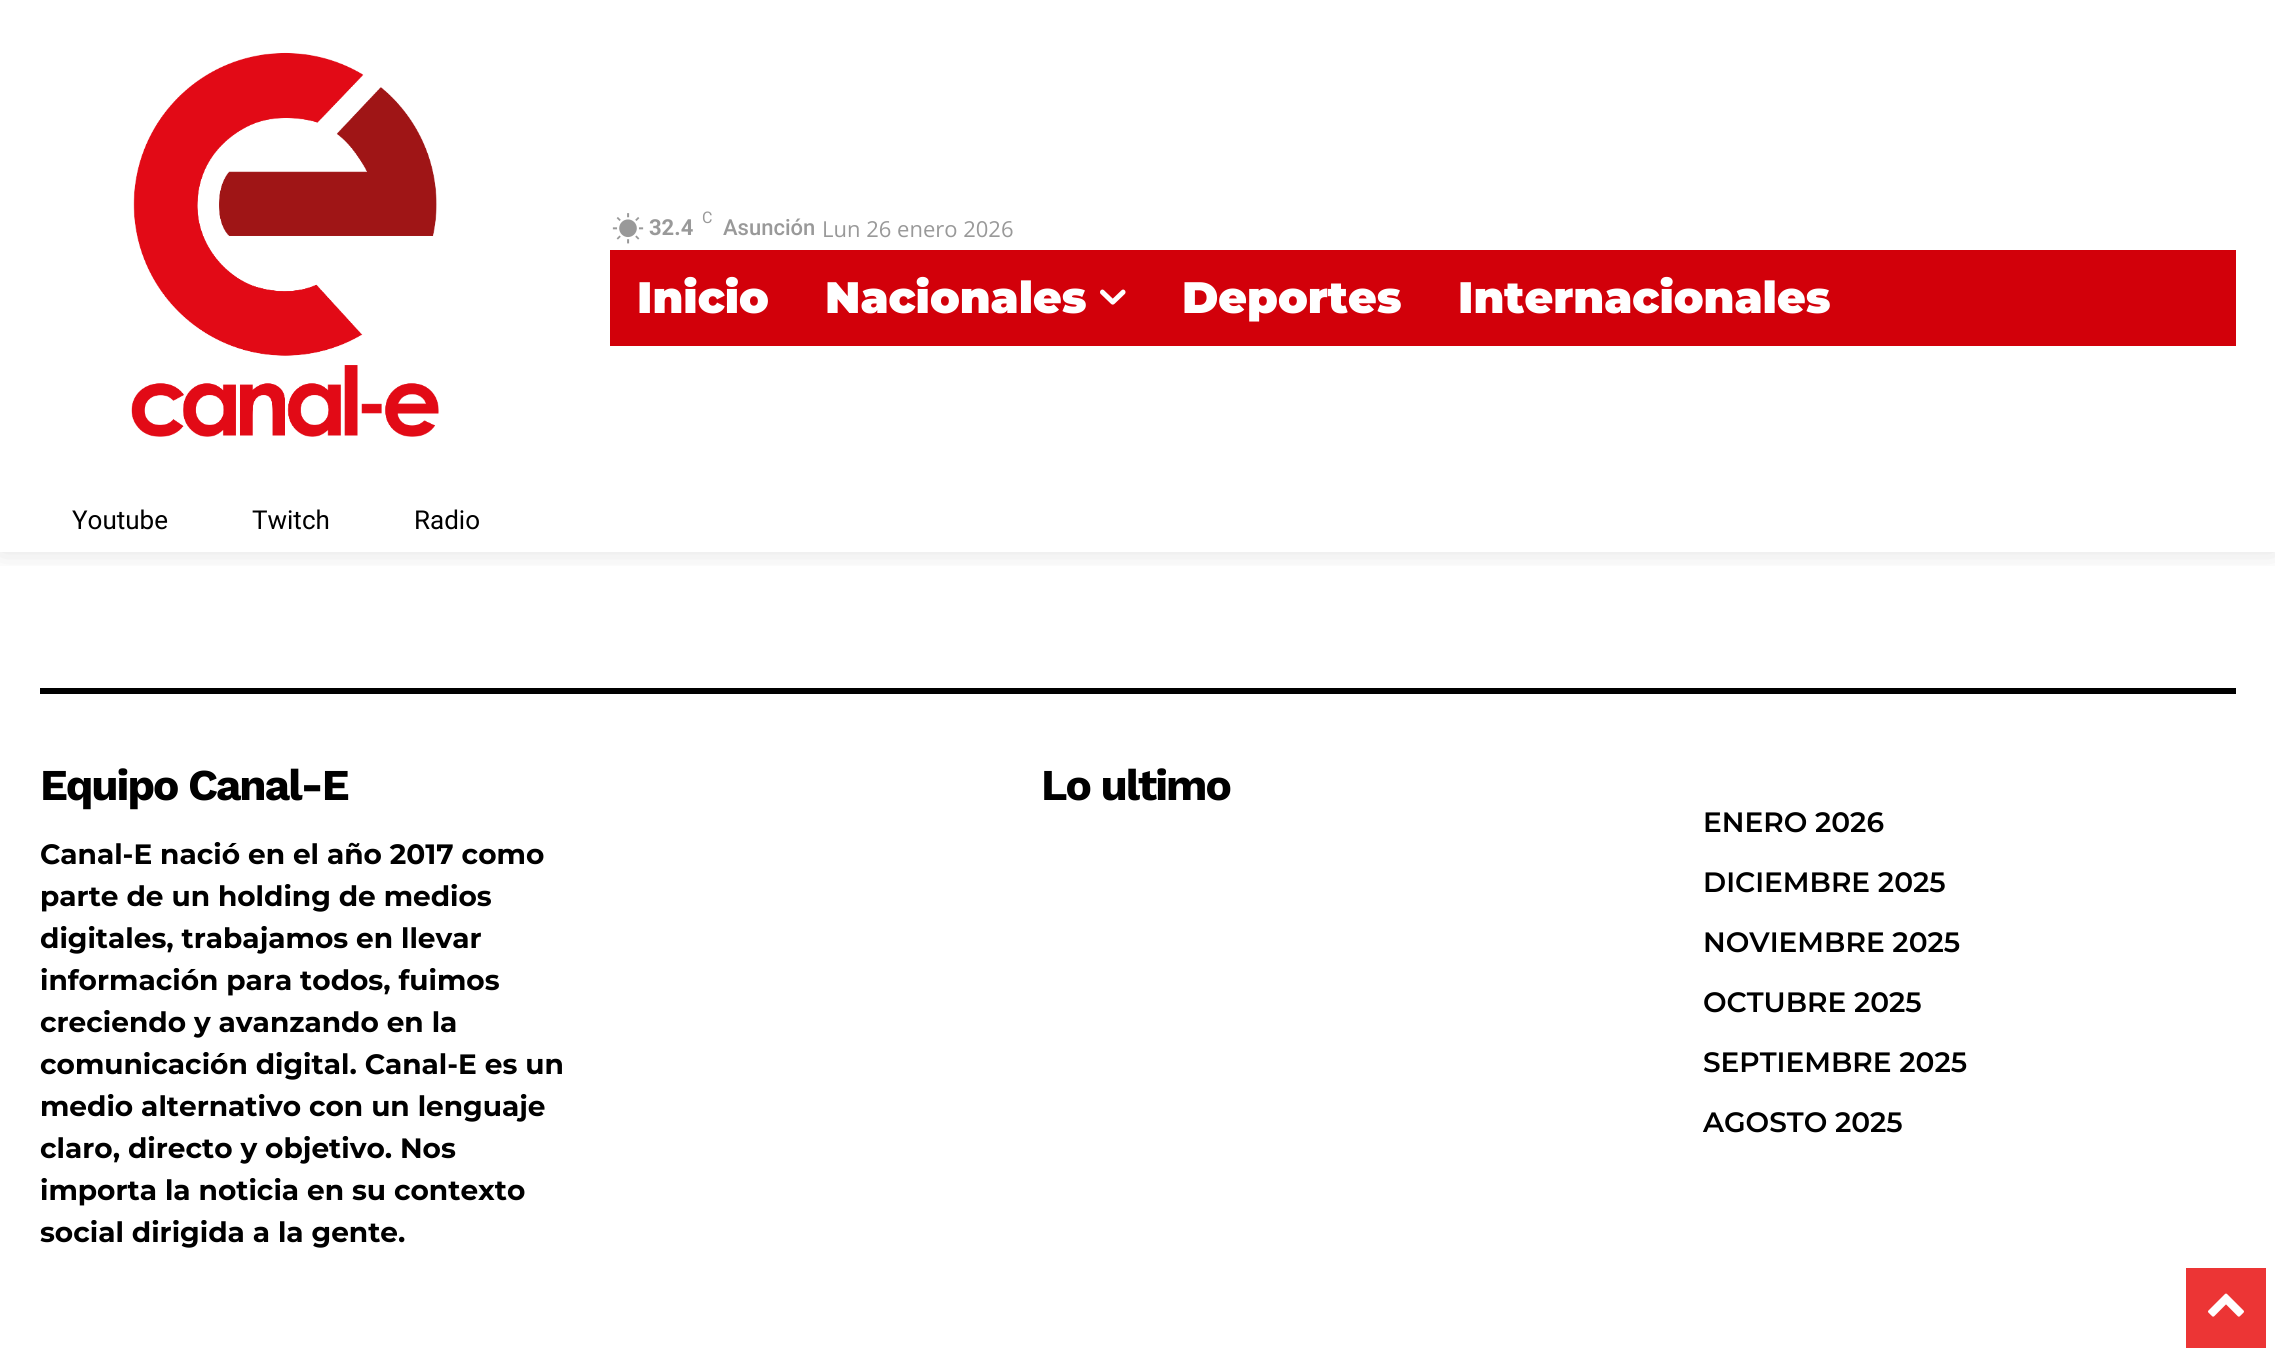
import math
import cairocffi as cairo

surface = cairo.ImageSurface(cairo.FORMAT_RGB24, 2275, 1355)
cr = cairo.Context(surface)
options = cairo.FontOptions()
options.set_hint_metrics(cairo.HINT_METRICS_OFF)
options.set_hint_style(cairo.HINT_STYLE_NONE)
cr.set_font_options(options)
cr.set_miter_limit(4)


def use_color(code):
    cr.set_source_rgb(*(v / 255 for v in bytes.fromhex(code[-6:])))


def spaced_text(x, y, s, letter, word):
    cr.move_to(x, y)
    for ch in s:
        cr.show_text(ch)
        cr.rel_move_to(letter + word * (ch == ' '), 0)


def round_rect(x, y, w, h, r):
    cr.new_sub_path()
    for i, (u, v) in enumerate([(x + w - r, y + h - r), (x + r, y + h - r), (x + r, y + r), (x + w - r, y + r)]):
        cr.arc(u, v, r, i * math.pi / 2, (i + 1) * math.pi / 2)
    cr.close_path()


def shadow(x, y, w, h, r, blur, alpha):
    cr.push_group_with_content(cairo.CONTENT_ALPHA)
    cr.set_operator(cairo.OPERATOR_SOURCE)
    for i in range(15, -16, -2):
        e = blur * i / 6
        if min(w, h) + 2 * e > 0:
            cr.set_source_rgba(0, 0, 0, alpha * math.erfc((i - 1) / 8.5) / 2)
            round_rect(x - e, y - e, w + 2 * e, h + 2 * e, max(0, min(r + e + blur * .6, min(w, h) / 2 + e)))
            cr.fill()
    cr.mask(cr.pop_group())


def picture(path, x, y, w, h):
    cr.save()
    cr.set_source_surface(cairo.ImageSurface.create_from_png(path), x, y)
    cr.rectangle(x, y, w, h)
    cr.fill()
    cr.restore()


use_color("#ffffff")
cr.paint()
picture("img1.png", 612, 213, 32, 31)
picture("img3.png", 131, 52, 308, 385)
cr.save()
cr.rectangle(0, 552, 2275, 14)
cr.clip()
use_color("#000000")
shadow(0, 0, 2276, 552, 0, 15, 0.12)
cr.restore()
cr.select_font_face("Roboto")
cr.set_font_size(16)
use_color("#999999")
cr.move_to(702, 223)
cr.show_text("C")
cr.select_font_face("Roboto", cairo.FONT_SLANT_NORMAL, cairo.FONT_WEIGHT_BOLD)
cr.set_font_size(22)
cr.move_to(649, 235)
cr.show_text("32.4")
cr.select_font_face("Roboto Medium")
cr.move_to(723, 235)
cr.show_text("Asunción")
cr.select_font_face("Open Sans")
cr.move_to(822, 237)
cr.show_text("Lun 26 enero 2026")
use_color("#d2000a")
cr.rectangle(610, 250, 1626, 96)
cr.fill()
cr.select_font_face("Montserrat Black")
cr.set_font_size(44)
use_color("#ffffff")
cr.move_to(637, 313)
cr.show_text("Inicio")
cr.move_to(825, 313)
cr.show_text("Nacionales")
picture("img2.png", 1100, 289, 26, 16)
cr.move_to(1182, 313)
cr.show_text("Deportes")
cr.move_to(1458, 313)
cr.show_text("Internacionales")
cr.select_font_face("Roboto")
cr.set_font_size(26)
use_color("#000000")
cr.move_to(72, 529)
cr.show_text("Youtube")
cr.move_to(252, 529)
cr.show_text("Twitch")
cr.move_to(414, 529)
cr.show_text("Radio")
cr.rectangle(40, 688, 2196, 6)
cr.fill()
cr.select_font_face("Work Sans", cairo.FONT_SLANT_NORMAL, cairo.FONT_WEIGHT_BOLD)
cr.set_font_size(44)
spaced_text(40, 800, "Equipo Canal-E", -2, 0)
cr.select_font_face("Montserrat", cairo.FONT_SLANT_NORMAL, cairo.FONT_WEIGHT_BOLD)
cr.set_font_size(28)
cr.move_to(40, 864)
cr.show_text("Canal-E nació en el año 2017 como")
cr.move_to(40, 906)
cr.show_text("parte de un holding de medios")
cr.move_to(40, 948)
cr.show_text("digitales, trabajamos en llevar")
cr.move_to(40, 990)
cr.show_text("información para todos, fuimos")
cr.move_to(40, 1032)
cr.show_text("creciendo y avanzando en la")
cr.move_to(40, 1074)
cr.show_text("comunicación digital. Canal-E es un")
cr.move_to(40, 1116)
cr.show_text("medio alternativo con un lenguaje")
cr.move_to(40, 1158)
cr.show_text("claro, directo y objetivo. Nos")
cr.move_to(40, 1200)
cr.show_text("importa la noticia en su contexto")
cr.move_to(40, 1242)
cr.show_text("social dirigida a la gente.")
cr.select_font_face("Work Sans", cairo.FONT_SLANT_NORMAL, cairo.FONT_WEIGHT_BOLD)
cr.set_font_size(44)
spaced_text(1041, 800, "Lo ultimo", -2, 0)
cr.select_font_face("Montserrat SemiBold")
cr.set_font_size(28)
cr.move_to(1703, 832)
cr.show_text("ENERO 2026")
cr.move_to(1703, 892)
cr.show_text("DICIEMBRE 2025")
cr.move_to(1703, 952)
cr.show_text("NOVIEMBRE 2025")
cr.move_to(1703, 1012)
cr.show_text("OCTUBRE 2025")
cr.move_to(1703, 1072)
cr.show_text("SEPTIEMBRE 2025")
cr.move_to(1703, 1132)
cr.show_text("AGOSTO 2025")
use_color("#ec3535")
cr.rectangle(2186, 1268, 80, 80)
cr.fill()
picture("img4.png", 2208, 1293, 36, 24)
surface.write_to_png("result.png")
